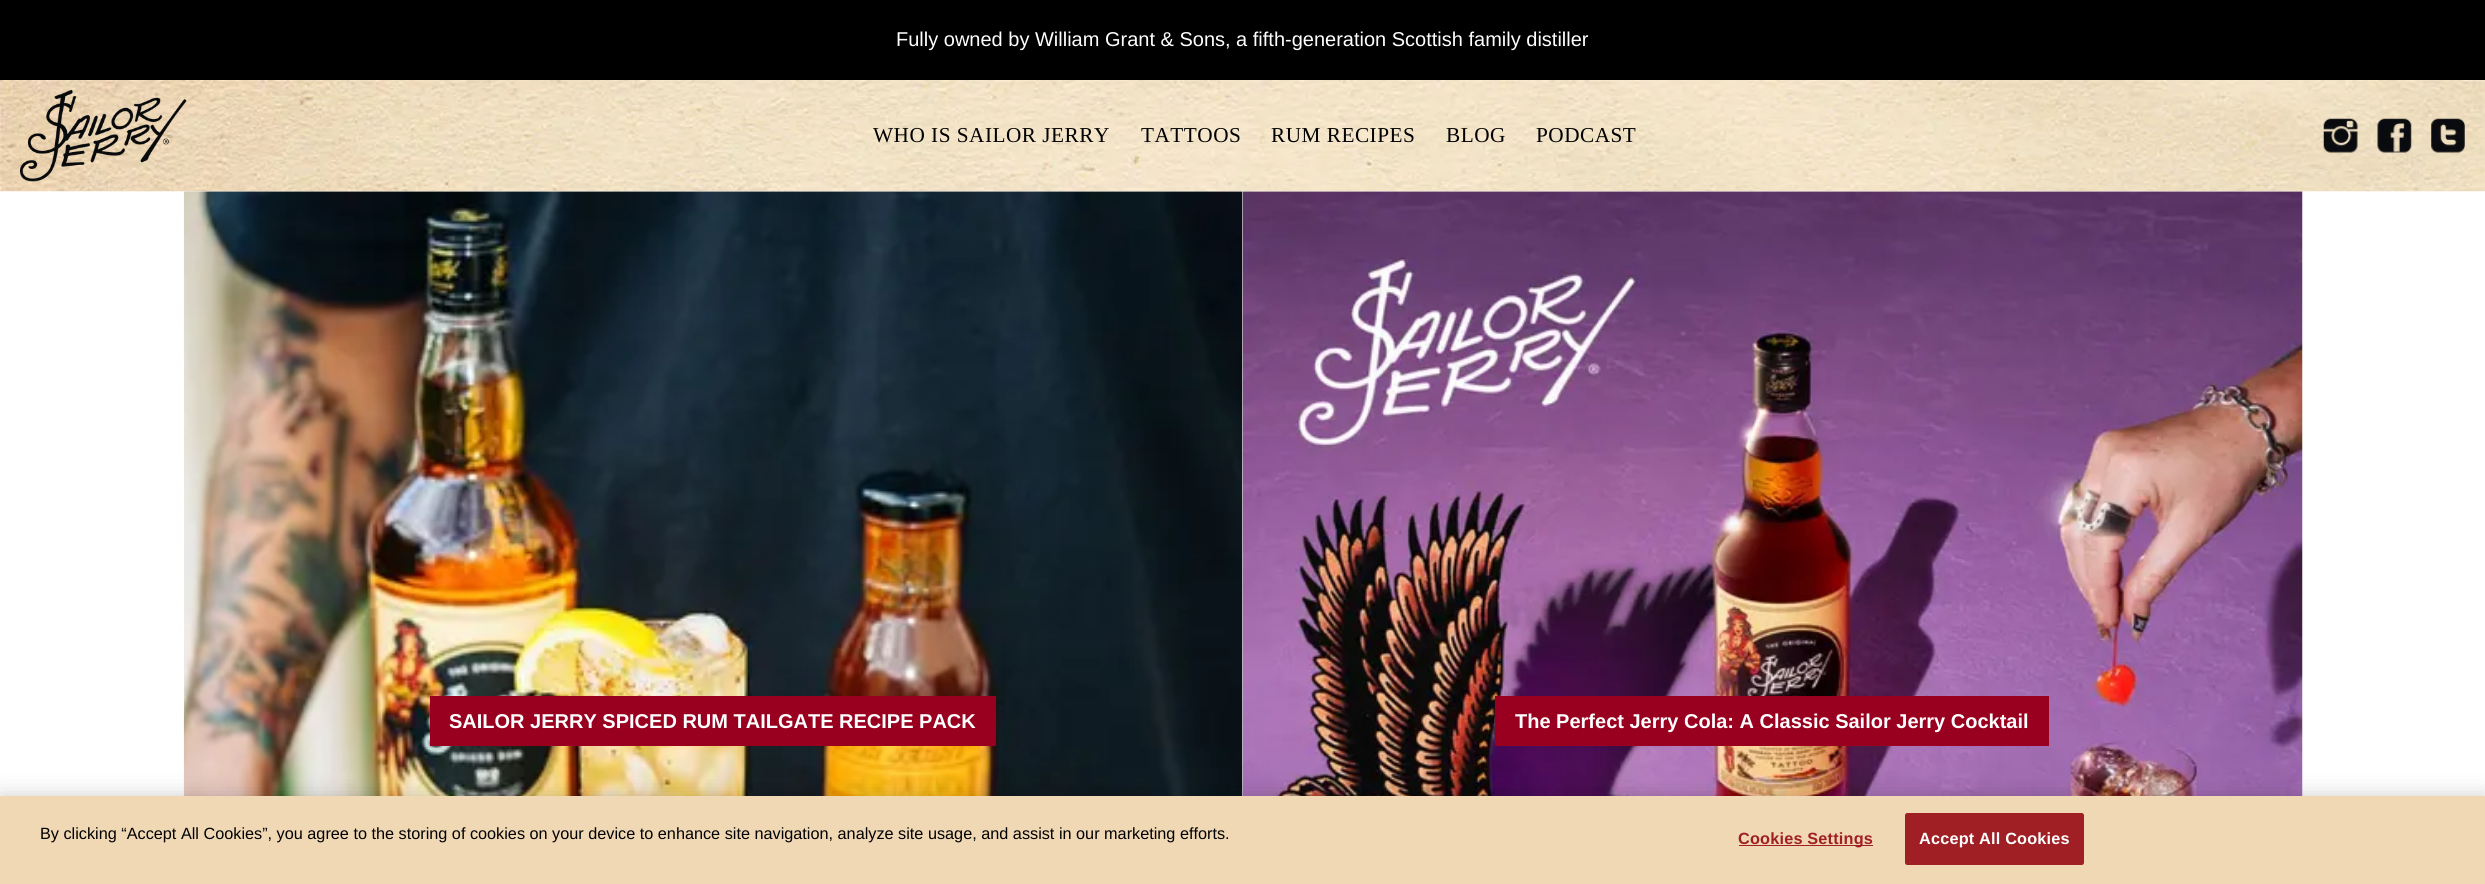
import math
import cairocffi as cairo

surface = cairo.ImageSurface(cairo.FORMAT_RGB24, 2485, 884)
cr = cairo.Context(surface)
options = cairo.FontOptions()
options.set_hint_metrics(cairo.HINT_METRICS_OFF)
options.set_hint_style(cairo.HINT_STYLE_NONE)
cr.set_font_options(options)
cr.set_miter_limit(4)


def use_color(code):
    cr.set_source_rgb(*(v / 255 for v in bytes.fromhex(code[-6:])))


def spaced_text(x, y, s, letter, word):
    cr.move_to(x, y)
    for ch in s:
        cr.show_text(ch)
        cr.rel_move_to(letter + word * (ch == ' '), 0)


def round_rect(x, y, w, h, r):
    cr.new_sub_path()
    for i, (u, v) in enumerate([(x + w - r, y + h - r), (x + r, y + h - r), (x + r, y + r), (x + w - r, y + r)]):
        cr.arc(u, v, r, i * math.pi / 2, (i + 1) * math.pi / 2)
    cr.close_path()


def shadow(x, y, w, h, r, blur, alpha):
    cr.push_group_with_content(cairo.CONTENT_ALPHA)
    cr.set_operator(cairo.OPERATOR_SOURCE)
    for i in range(15, -16, -2):
        e = blur * i / 6
        if min(w, h) + 2 * e > 0:
            cr.set_source_rgba(0, 0, 0, alpha * math.erfc((i - 1) / 8.5) / 2)
            round_rect(x - e, y - e, w + 2 * e, h + 2 * e, max(0, min(r + e + blur * .6, min(w, h) / 2 + e)))
            cr.fill()
    cr.mask(cr.pop_group())


def picture(path, x, y, w, h):
    cr.save()
    cr.set_source_surface(cairo.ImageSurface.create_from_png(path), x, y)
    cr.rectangle(x, y, w, h)
    cr.fill()
    cr.restore()


use_color("#ffffff")
cr.paint()
use_color("#000000")
cr.rectangle(0, 0, 2485, 80)
cr.fill()
cr.select_font_face("Liberation Sans")
cr.set_font_size(20)
use_color("#ffffff")
cr.move_to(896, 46)
cr.show_text("Fully owned by William Grant & Sons, a fifth-generation Scottish family distiller")
picture("img6.png", 183, 191, 1060, 605)
picture("img7.png", 1242, 191, 1061, 605)
picture("img1.png", 0, 80, 2485, 112)
picture("img2.png", 20, 90, 167, 92)
cr.select_font_face("Liberation Serif")
cr.set_font_size(21.25)
use_color("#000000")
spaced_text(873, 142, "WHO IS SAILOR JERRY", 0.5, 0)
spaced_text(1141, 142, "TATTOOS", 0.5, 0)
spaced_text(1271, 142, "RUM RECIPES", 0.5, 0)
spaced_text(1446, 142, "BLOG", 0.5, 0)
spaced_text(1536, 142, "PODCAST", 0.5, 0)
picture("img3.png", 2323, 118, 35, 35)
picture("img4.png", 2377, 118, 35, 35)
picture("img5.png", 2431, 118, 34, 35)
use_color("#99001f")
cr.rectangle(430, 696, 566, 50)
cr.fill()
cr.select_font_face("Liberation Sans", cairo.FONT_SLANT_NORMAL, cairo.FONT_WEIGHT_BOLD)
cr.set_font_size(20)
use_color("#ffffff")
cr.move_to(449, 728)
cr.show_text("SAILOR JERRY SPICED RUM TAILGATE RECIPE PACK")
use_color("#99001f")
cr.rectangle(1495, 696, 554, 50)
cr.fill()
use_color("#ffffff")
cr.move_to(1515, 728)
cr.show_text("The Perfect Jerry Cola: A Classic Sailor Jerry Cocktail")
use_color("#000000")
shadow(0, 796, 2485, 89, 0, 11, 0.2)
use_color("#f0d8b4")
cr.rectangle(0, 796, 2485, 88)
cr.fill()
cr.select_font_face("Liberation Sans")
cr.set_font_size(16.25)
use_color("#000000")
cr.move_to(40, 839)
cr.show_text("By clicking “Accept All Cookies”, you agree to the storing of cookies on your device to enhance site navigation, analyze site usage, and assist in our marketing efforts.")
use_color("#9f1f24")
cr.rectangle(1739, 845, 134, 1)
cr.fill()
cr.select_font_face("Liberation Sans", cairo.FONT_SLANT_NORMAL, cairo.FONT_WEIGHT_BOLD)
spaced_text(1738, 844, "Cookies Settings", 0.2, 0)
round_rect(1905.5, 813.5, 178, 51, 2)
cr.fill_preserve()
cr.set_line_width(1)
cr.stroke()
use_color("#ffffff")
spaced_text(1919, 844, "Accept All Cookies", 0.2, 0)
surface.write_to_png("result.png")
